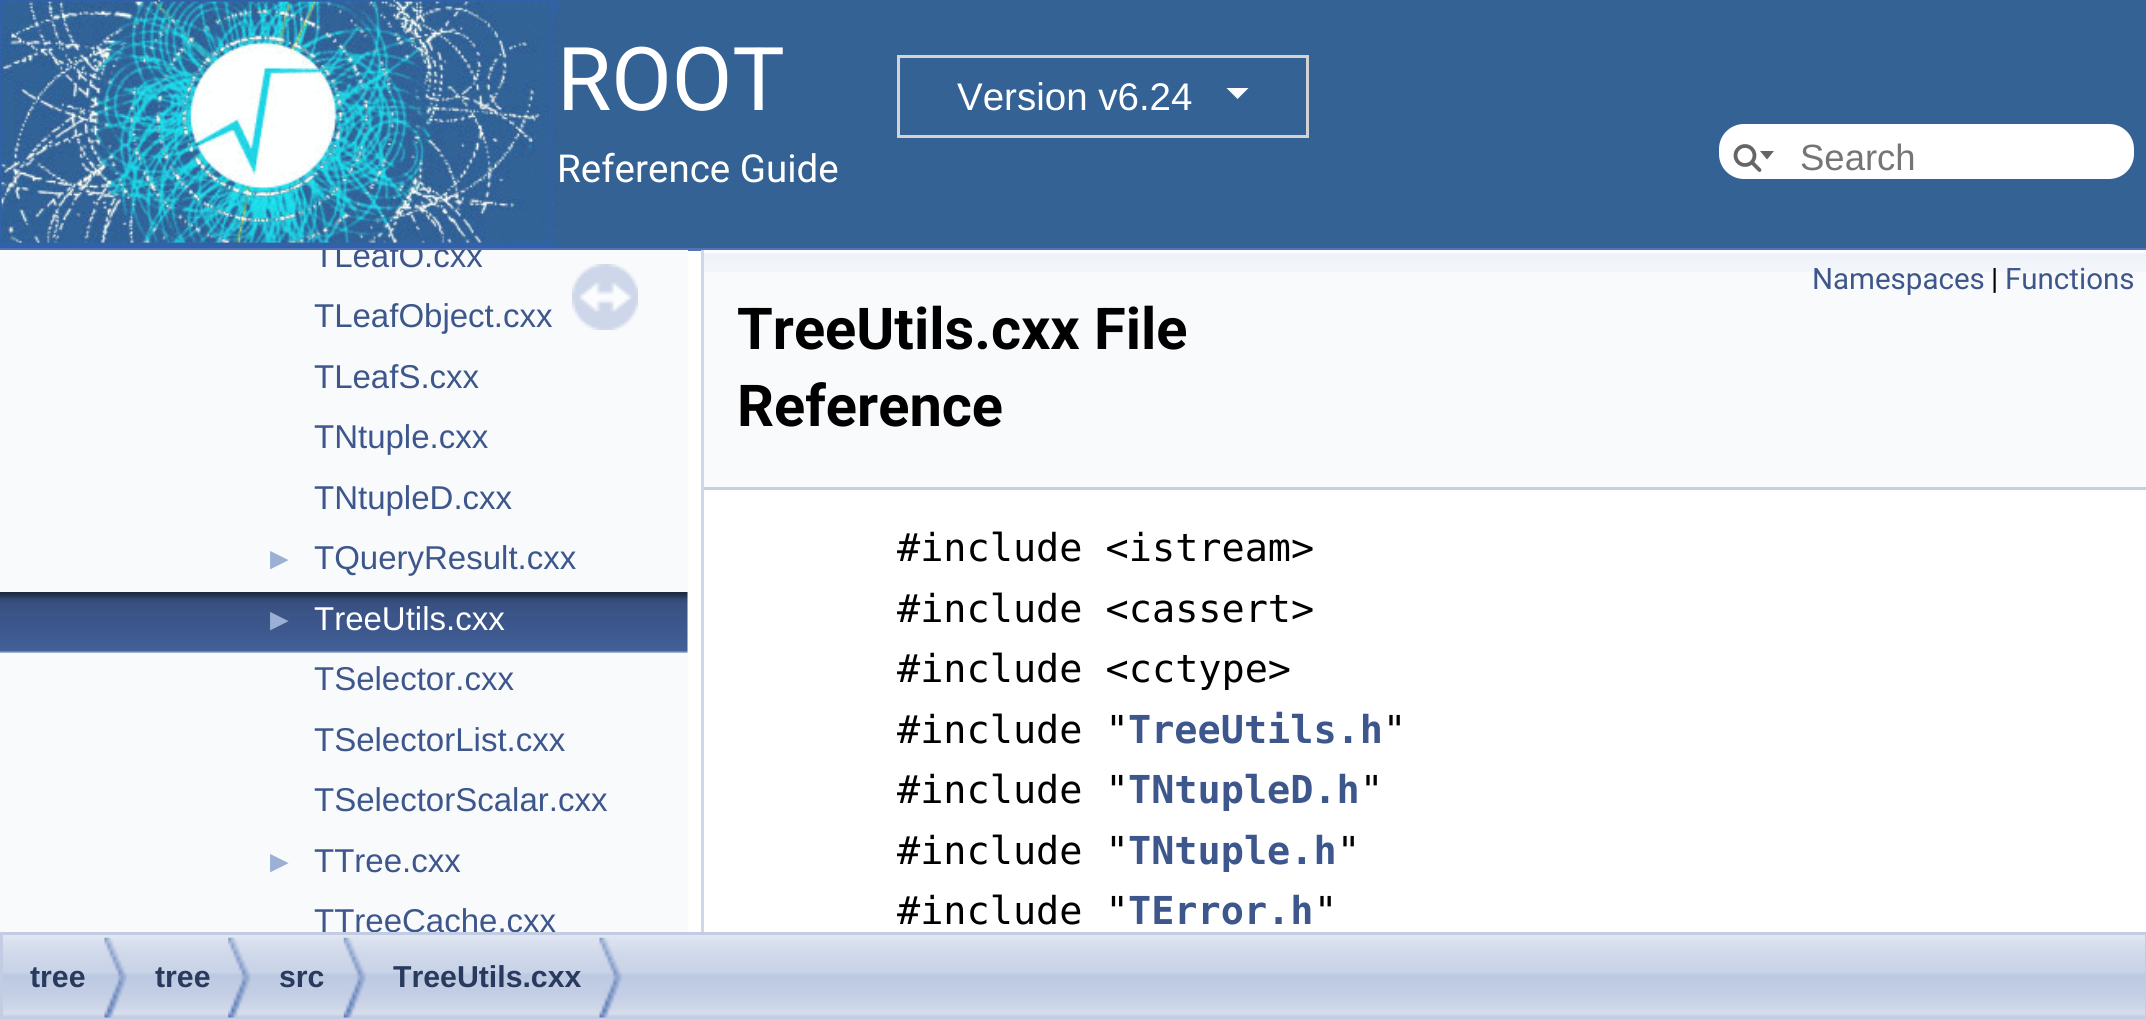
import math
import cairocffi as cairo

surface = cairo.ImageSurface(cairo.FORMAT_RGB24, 2146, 1019)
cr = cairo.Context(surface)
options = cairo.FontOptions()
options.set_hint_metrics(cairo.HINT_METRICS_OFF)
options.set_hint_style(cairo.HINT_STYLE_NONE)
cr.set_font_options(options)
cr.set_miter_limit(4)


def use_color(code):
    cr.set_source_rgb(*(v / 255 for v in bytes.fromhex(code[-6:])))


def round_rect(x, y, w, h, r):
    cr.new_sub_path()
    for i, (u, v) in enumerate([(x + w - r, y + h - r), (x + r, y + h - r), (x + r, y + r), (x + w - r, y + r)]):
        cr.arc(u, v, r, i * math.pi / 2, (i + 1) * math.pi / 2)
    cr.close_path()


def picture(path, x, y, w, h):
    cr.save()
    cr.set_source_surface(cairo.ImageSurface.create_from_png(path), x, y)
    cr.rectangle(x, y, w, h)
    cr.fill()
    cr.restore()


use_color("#ffffff")
cr.paint()
use_color("#5373b4")
cr.rectangle(0, 248, 2146, 3)
cr.fill()
use_color("#346295")
cr.rectangle(0, 0, 2146, 248)
cr.fill()
picture("img1.png", 0, 0, 559, 248)
cr.select_font_face("Roboto")
cr.set_font_size(88)
use_color("#ffffff")
cr.move_to(557, 110)
cr.show_text("ROOT")
cr.rectangle(898.5, 56.5, 409, 80)
use_color("#d3d3d3")
cr.set_line_width(3)
cr.stroke()
cr.select_font_face("Liberation Sans")
cr.set_font_size(38.5)
use_color("#ffffff")
cr.move_to(957, 110)
cr.show_text("Version v6.24")
cr.new_path()
cr.move_to(1226.5, 88)
cr.line_to(1248.5, 88)
cr.line_to(1237.5, 99)
cr.close_path()
cr.fill()
cr.select_font_face("Roboto")
cr.move_to(557, 182)
cr.show_text("Reference Guide")
round_rect(1719, 124, 415, 55, 25)
cr.fill()
cr.arc(1745, 155.5, 9.5, 0, 2 * math.pi)
use_color("#656565")
cr.set_line_width(3.8)
cr.stroke()
cr.new_path()
cr.move_to(1760, 151)
cr.line_to(1767, 159.5)
cr.line_to(1774, 151)
cr.close_path()
cr.fill()
cr.new_path()
cr.move_to(1752, 162.5)
cr.line_to(1759.5, 170)
cr.set_line_cap(cairo.LINE_CAP_ROUND)
cr.stroke()
cr.select_font_face("Liberation Sans")
cr.set_font_size(36.5)
use_color("#757575")
cr.move_to(1800, 170)
cr.show_text("Search")
use_color("#f9fafc")
cr.rectangle(0, 250, 688, 682)
cr.fill()
cr.save()
cr.rectangle(0, 250, 688, 682)
cr.clip()
cr.set_font_size(33)
use_color("#3d578c")
cr.move_to(314, 267)
cr.show_text("TLeafO.cxx")
cr.restore()
cr.set_font_size(33)
use_color("#3d578c")
cr.move_to(314, 327)
cr.show_text("TLeafObject.cxx")
cr.move_to(314, 388)
cr.show_text("TLeafS.cxx")
cr.move_to(314, 448)
cr.show_text("TNtuple.cxx")
cr.move_to(314, 509)
cr.show_text("TNtupleD.cxx")
cr.set_font_size(31)
use_color("#9cafd4")
cr.move_to(264, 569)
cr.show_text("►")
cr.set_font_size(33)
use_color("#3d578c")
cr.move_to(314, 569)
cr.show_text("TQueryResult.cxx")
picture("img2.png", 0, 592, 688, 61)
cr.set_font_size(31)
use_color("#9cafd4")
cr.move_to(264, 630)
cr.show_text("►")
cr.set_font_size(33)
use_color("#ffffff")
cr.move_to(314, 630)
cr.show_text("TreeUtils.cxx")
use_color("#3d578c")
cr.move_to(314, 690)
cr.show_text("TSelector.cxx")
cr.move_to(314, 751)
cr.show_text("TSelectorList.cxx")
cr.move_to(314, 811)
cr.show_text("TSelectorScalar.cxx")
cr.set_font_size(31)
use_color("#9cafd4")
cr.move_to(264, 872)
cr.show_text("►")
cr.set_font_size(33)
use_color("#3d578c")
cr.move_to(314, 872)
cr.show_text("TTree.cxx")
cr.save()
cr.rectangle(0, 250, 688, 682)
cr.clip()
cr.move_to(314, 932)
cr.show_text("TTreeCache.cxx")
cr.restore()
picture("img3.png", 572, 264, 66, 66)
use_color("#ced6e9")
cr.rectangle(701, 250, 3, 682)
cr.fill()
use_color("#f9fafc")
cr.rectangle(704, 250, 1442, 237)
cr.fill()
picture("img4.png", 704, 251, 1442, 21)
use_color("#c4cfe5")
cr.rectangle(704, 487, 1442, 3)
cr.fill()
cr.select_font_face("Roboto")
cr.set_font_size(29.5)
use_color("#3d578c")
cr.move_to(1812, 289)
cr.show_text("Namespaces")
use_color("#000000")
cr.move_to(1991, 289)
cr.show_text("|")
use_color("#3d578c")
cr.move_to(2005, 289)
cr.show_text("Functions")
cr.select_font_face("Roboto", cairo.FONT_SLANT_NORMAL, cairo.FONT_WEIGHT_BOLD)
cr.set_font_size(57.75)
use_color("#000000")
cr.move_to(737, 349)
cr.show_text("TreeUtils.cxx File")
cr.move_to(737, 426)
cr.show_text("Reference")
cr.select_font_face("DejaVu Sans Mono")
cr.set_font_size(38.5)
cr.move_to(897, 561)
cr.show_text("#include <istream>")
cr.move_to(897, 622)
cr.show_text("#include <cassert>")
cr.move_to(897, 682)
cr.show_text("#include <cctype>")
cr.move_to(897, 743)
cr.show_text("#include \"")
cr.select_font_face("DejaVu Sans Mono", cairo.FONT_SLANT_NORMAL, cairo.FONT_WEIGHT_BOLD)
use_color("#3d578c")
cr.move_to(1128, 743)
cr.show_text("TreeUtils.h")
cr.select_font_face("DejaVu Sans Mono")
use_color("#000000")
cr.move_to(1383, 743)
cr.show_text("\"")
cr.move_to(897, 803)
cr.show_text("#include \"")
cr.select_font_face("DejaVu Sans Mono", cairo.FONT_SLANT_NORMAL, cairo.FONT_WEIGHT_BOLD)
use_color("#3d578c")
cr.move_to(1128, 803)
cr.show_text("TNtupleD.h")
cr.select_font_face("DejaVu Sans Mono")
use_color("#000000")
cr.move_to(1360, 803)
cr.show_text("\"")
cr.move_to(897, 864)
cr.show_text("#include \"")
cr.select_font_face("DejaVu Sans Mono", cairo.FONT_SLANT_NORMAL, cairo.FONT_WEIGHT_BOLD)
use_color("#3d578c")
cr.move_to(1128, 864)
cr.show_text("TNtuple.h")
cr.select_font_face("DejaVu Sans Mono")
use_color("#000000")
cr.move_to(1337, 864)
cr.show_text("\"")
cr.move_to(897, 924)
cr.show_text("#include \"")
cr.select_font_face("DejaVu Sans Mono", cairo.FONT_SLANT_NORMAL, cairo.FONT_WEIGHT_BOLD)
use_color("#3d578c")
cr.move_to(1128, 924)
cr.show_text("TError.h")
cr.select_font_face("DejaVu Sans Mono")
use_color("#000000")
cr.move_to(1314, 924)
cr.show_text("\"")
picture("img5.png", 3, 935, 2142, 82)
cr.rectangle(1.5, 933.5, 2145, 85)
use_color("#c2cde4")
cr.set_line_width(3)
cr.set_line_cap(cairo.LINE_CAP_BUTT)
cr.stroke()
picture("img6.png", 104, 937, 23, 81)
cr.select_font_face("Liberation Sans", cairo.FONT_SLANT_NORMAL, cairo.FONT_WEIGHT_BOLD)
cr.set_font_size(30.25)
use_color("#283a5d")
cr.move_to(30, 987)
cr.show_text("tree")
picture("img7.png", 228, 937, 23, 81)
cr.move_to(155, 987)
cr.show_text("tree")
picture("img8.png", 343, 937, 23, 81)
cr.move_to(279, 987)
cr.show_text("src")
picture("img6.png", 599, 937, 23, 81)
cr.move_to(393, 987)
cr.show_text("TreeUtils.cxx")
surface.write_to_png("result.png")
